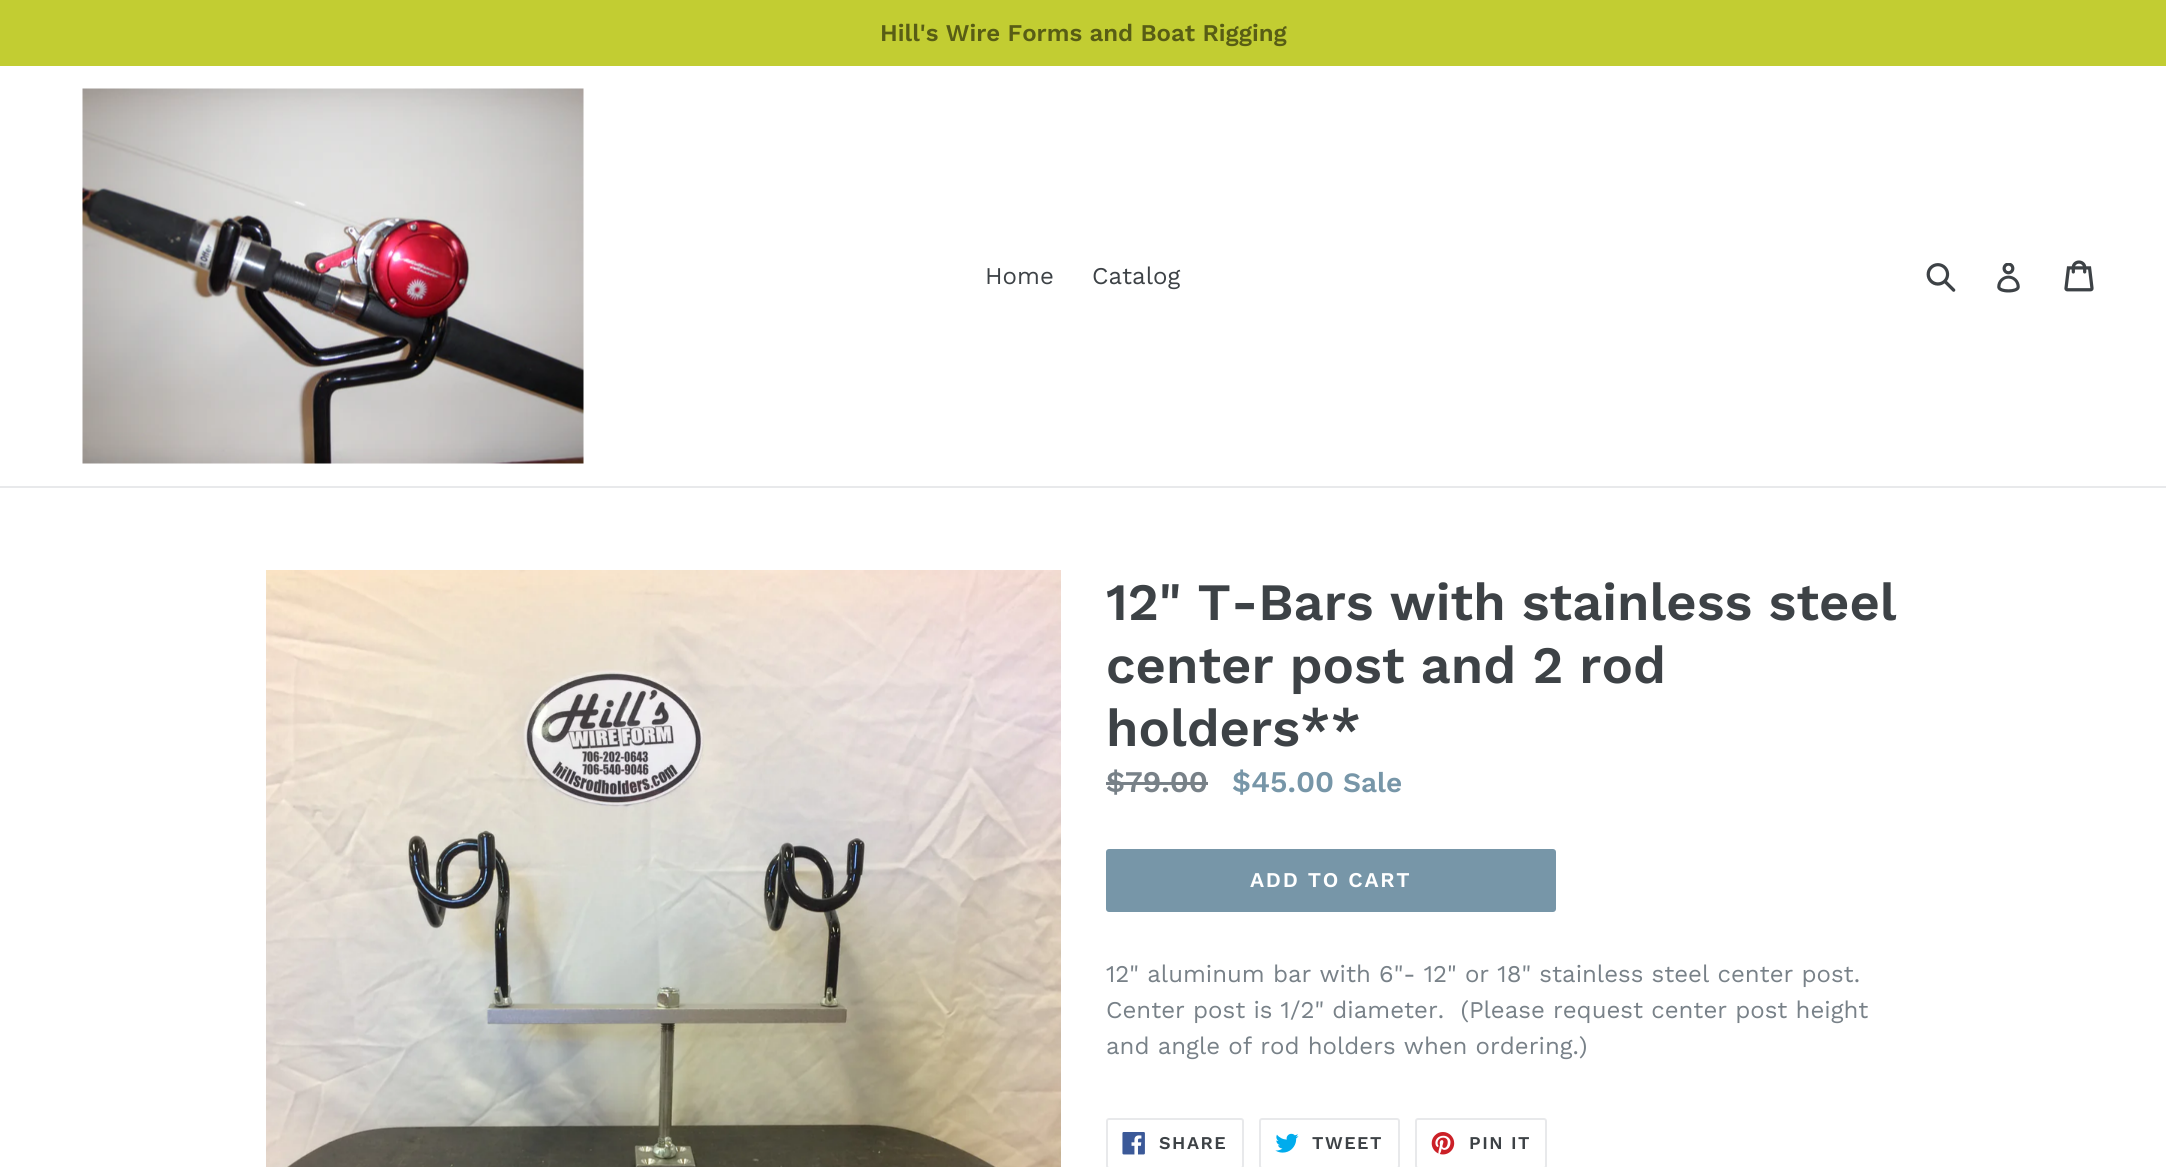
import math
import cairocffi as cairo

surface = cairo.ImageSurface(cairo.FORMAT_RGB24, 2166, 1167)
cr = cairo.Context(surface)
options = cairo.FontOptions()
options.set_hint_metrics(cairo.HINT_METRICS_OFF)
options.set_hint_style(cairo.HINT_STYLE_NONE)
cr.set_font_options(options)
cr.set_miter_limit(4)


def use_color(code):
    cr.set_source_rgb(*(v / 255 for v in bytes.fromhex(code[-6:])))


def spaced_text(x, y, s, letter, word):
    cr.move_to(x, y)
    for ch in s:
        cr.show_text(ch)
        cr.rel_move_to(letter + word * (ch == ' '), 0)


def round_rect(x, y, w, h, r):
    cr.new_sub_path()
    for i, (u, v) in enumerate([(x + w - r, y + h - r), (x + r, y + h - r), (x + r, y + r), (x + w - r, y + r)]):
        cr.arc(u, v, r, i * math.pi / 2, (i + 1) * math.pi / 2)
    cr.close_path()


def picture(path, x, y, w, h):
    cr.save()
    cr.set_source_surface(cairo.ImageSurface.create_from_png(path), x, y)
    cr.rectangle(x, y, w, h)
    cr.fill()
    cr.restore()


use_color("#ffffff")
cr.paint()
use_color("#c2cd32")
cr.rectangle(0, 0, 2166, 66)
cr.fill()
cr.select_font_face("Work Sans SemiBold")
cr.set_font_size(24)
use_color("#585d15")
cr.move_to(880, 41)
cr.show_text("Hill's Wire Forms and Boat Rigging")
use_color("#e8e9eb")
cr.rectangle(0, 486, 2166, 2)
cr.fill()
picture("img1.png", 82, 88, 502, 376)
cr.select_font_face("Work Sans")
use_color("#3d4246")
cr.move_to(985, 284)
cr.show_text("Home")
cr.move_to(1092, 284)
cr.show_text("Catalog")
picture("img2.png", 1926, 263, 30, 29)
picture("img3.png", 1997, 263, 23, 30)
picture("img4.png", 2064, 260, 30, 32)
picture("img5.png", 266, 570, 795, 597)
cr.select_font_face("Work Sans SemiBold")
cr.set_font_size(52.5)
cr.move_to(1106, 620)
cr.show_text("12\" T-Bars with stainless steel")
cr.move_to(1106, 683)
cr.show_text("center post and 2 rod")
cr.move_to(1106, 746)
cr.show_text("holders**")
cr.set_font_size(30)
use_color("#788188")
cr.move_to(1106, 792)
cr.show_text("$79.00")
cr.rectangle(1106, 782, 102, 3)
cr.fill()
use_color("#7796a8")
cr.move_to(1232, 792)
cr.show_text("$45.00")
cr.set_font_size(28)
cr.move_to(1343, 792)
cr.show_text("Sale")
round_rect(1106, 849, 450, 63, 3)
cr.fill()
cr.set_font_size(21)
use_color("#ffffff")
spaced_text(1250, 887, "ADD TO CART", 1.75, 0)
cr.select_font_face("Work Sans")
cr.set_font_size(24)
use_color("#788188")
cr.move_to(1106, 982)
cr.show_text("12\" aluminum bar with 6\"- 12\" or 18\" stainless steel center post.")
cr.move_to(1106, 1018)
cr.show_text("Center post is 1/2\" diameter.  (Please request center post height")
cr.move_to(1106, 1054)
cr.show_text("and angle of rod holders when ordering.)")
round_rect(1107, 1119, 136, 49, 2)
use_color("#e8e9eb")
cr.stroke()
picture("img6.png", 1122, 1132, 23, 23)
cr.select_font_face("Work Sans SemiBold")
cr.set_font_size(18)
use_color("#3d4246")
spaced_text(1159, 1149, "SHARE", 1.5, 0)
round_rect(1260, 1119, 139, 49, 2)
use_color("#e8e9eb")
cr.stroke()
picture("img7.png", 1275, 1133, 24, 20)
use_color("#3d4246")
spaced_text(1312, 1149, "TWEET", 1.5, 0)
round_rect(1416, 1119, 130, 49, 2)
use_color("#e8e9eb")
cr.stroke()
picture("img8.png", 1431, 1132, 24, 23)
use_color("#3d4246")
spaced_text(1469, 1149, "PIN IT", 1.5, 0)
surface.write_to_png("result.png")
